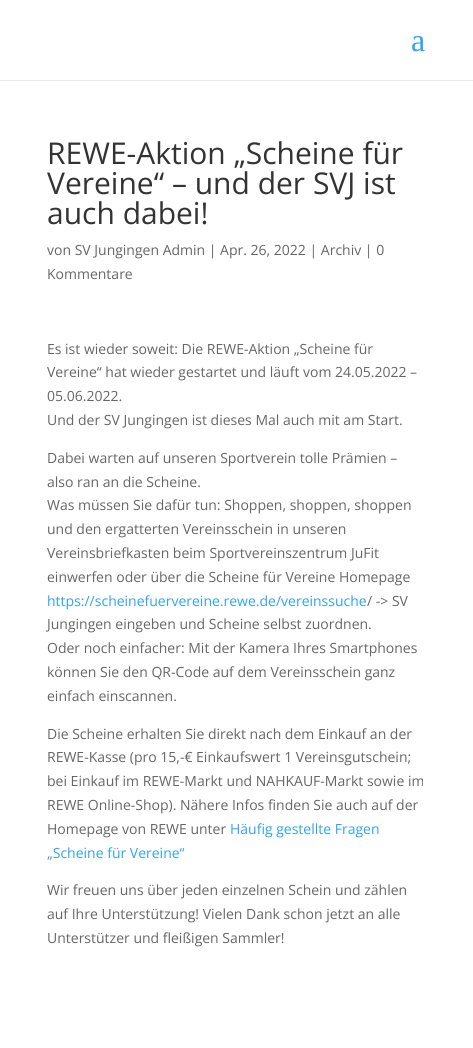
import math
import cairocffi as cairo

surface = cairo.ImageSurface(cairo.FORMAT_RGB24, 473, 1048)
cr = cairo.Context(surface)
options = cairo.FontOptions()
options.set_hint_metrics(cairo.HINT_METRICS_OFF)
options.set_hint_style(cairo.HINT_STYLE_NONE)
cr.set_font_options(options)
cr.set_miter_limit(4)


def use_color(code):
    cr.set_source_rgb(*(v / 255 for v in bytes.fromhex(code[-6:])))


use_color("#ffffff")
cr.paint()
use_color("#e6e6e6")
cr.rectangle(0, 80, 473, 1)
cr.fill()
cr.select_font_face("Liberation Serif")
cr.set_font_size(32)
use_color("#2ea3f2")
cr.move_to(411, 51)
cr.show_text("a")
cr.select_font_face("Open Sans")
cr.set_font_size(30)
use_color("#333333")
cr.move_to(47, 164)
cr.show_text("REWE-Aktion „Scheine für")
cr.move_to(47, 194)
cr.show_text("Vereine“ – und der SVJ ist")
cr.move_to(47, 224)
cr.show_text("auch dabei!")
cr.set_font_size(14)
use_color("#666666")
cr.move_to(47, 255)
cr.show_text("von SV Jungingen Admin | Apr. 26, 2022 | Archiv | 0")
cr.move_to(47, 279)
cr.show_text("Kommentare")
cr.move_to(47, 354)
cr.show_text("Es ist wieder soweit: Die REWE-Aktion „Scheine für")
cr.move_to(47, 377)
cr.show_text("Vereine“ hat wieder gestartet und läuft vom 24.05.2022 –")
cr.move_to(47, 401)
cr.show_text("05.06.2022.")
cr.move_to(47, 425)
cr.show_text("Und der SV Jungingen ist dieses Mal auch mit am Start.")
cr.move_to(47, 463)
cr.show_text("Dabei warten auf unseren Sportverein tolle Prämien –")
cr.move_to(47, 487)
cr.show_text("also ran an die Scheine.")
cr.move_to(47, 510)
cr.show_text("Was müssen Sie dafür tun: Shoppen, shoppen, shoppen")
cr.move_to(47, 534)
cr.show_text("und den ergatterten Vereinsschein in unseren")
cr.move_to(47, 558)
cr.show_text("Vereinsbriefkasten beim Sportvereinszentrum JuFit")
cr.move_to(47, 582)
cr.show_text("einwerfen oder über die Scheine für Vereine Homepage")
use_color("#2ea3f2")
cr.move_to(47, 606)
cr.show_text("https://scheinefuervereine.rewe.de/vereinssuche")
use_color("#666666")
cr.move_to(367, 606)
cr.show_text("/ -> SV")
cr.move_to(47, 629)
cr.show_text("Jungingen eingeben und Scheine selbst zuordnen.")
cr.move_to(47, 653)
cr.show_text("Oder noch einfacher: Mit der Kamera Ihres Smartphones")
cr.move_to(47, 677)
cr.show_text("können Sie den QR-Code auf dem Vereinsschein ganz")
cr.move_to(47, 701)
cr.show_text("einfach einscannen.")
cr.move_to(47, 739)
cr.show_text("Die Scheine erhalten Sie direkt nach dem Einkauf an der")
cr.move_to(47, 762)
cr.show_text("REWE-Kasse (pro 15,-€ Einkaufswert 1 Vereinsgutschein;")
cr.move_to(47, 786)
cr.show_text("bei Einkauf im REWE-Markt und NAHKAUF-Markt sowie im")
cr.move_to(47, 810)
cr.show_text("REWE Online-Shop). Nähere Infos finden Sie auch auf der")
cr.move_to(47, 834)
cr.show_text("Homepage von REWE unter")
use_color("#2ea3f2")
cr.move_to(230, 834)
cr.show_text("Häufig gestellte Fragen")
cr.move_to(47, 858)
cr.show_text("„Scheine für Vereine“")
use_color("#666666")
cr.move_to(47, 895)
cr.show_text("Wir freuen uns über jeden einzelnen Schein und zählen")
cr.move_to(47, 919)
cr.show_text("auf Ihre Unterstützung! Vielen Dank schon jetzt an alle")
cr.move_to(47, 943)
cr.show_text("Unterstützer und fleißigen Sammler!")
surface.write_to_png("result.png")
